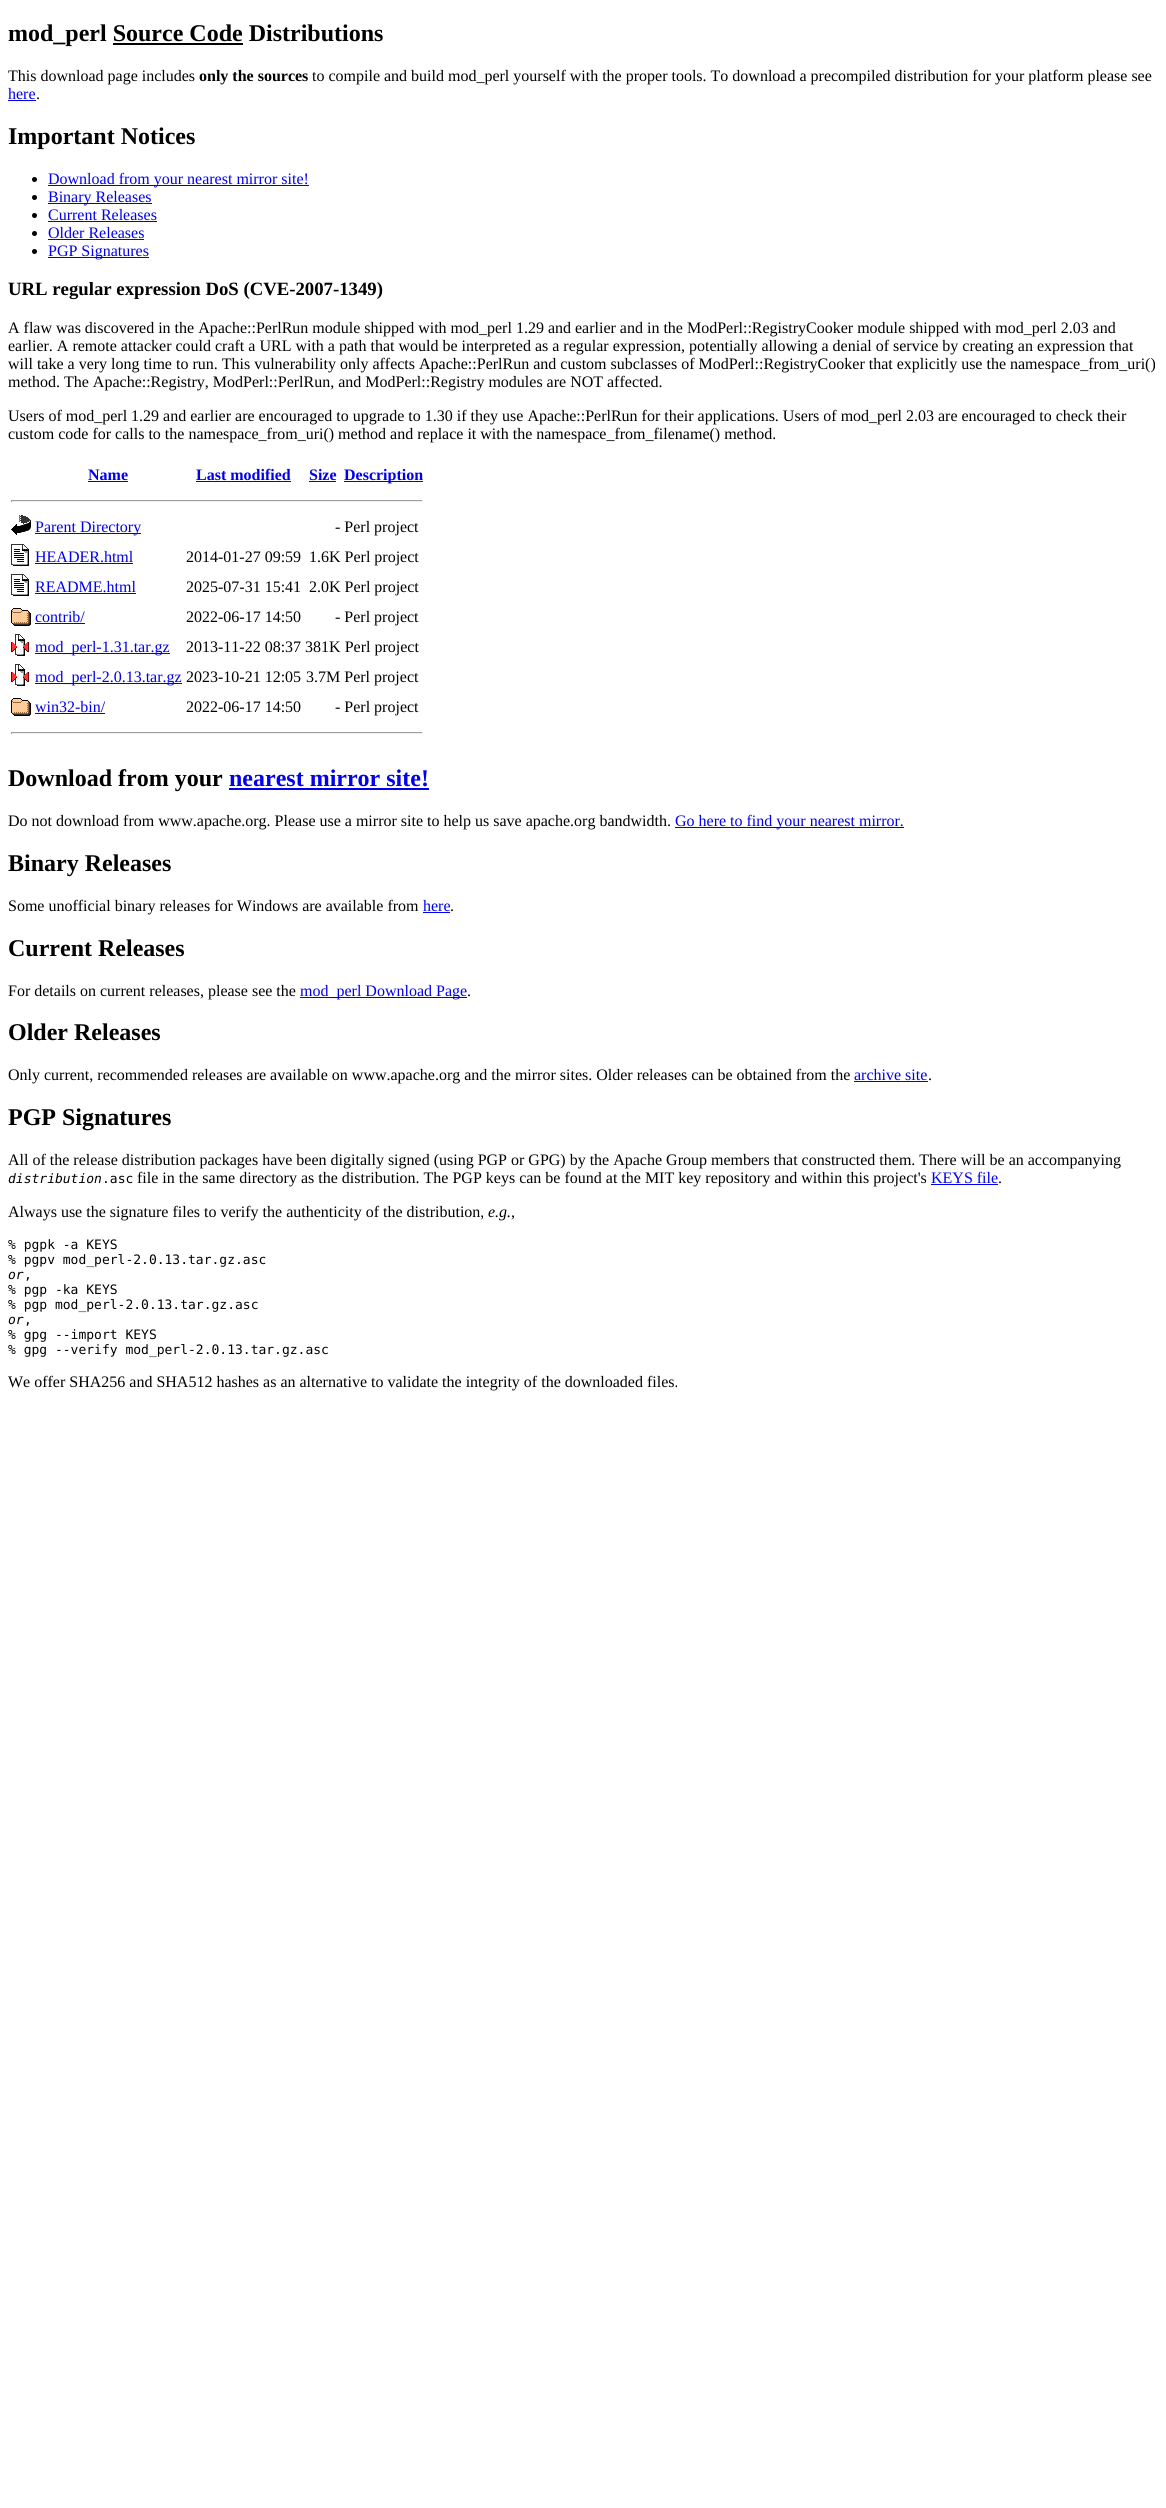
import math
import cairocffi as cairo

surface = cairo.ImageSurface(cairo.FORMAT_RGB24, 1166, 2508)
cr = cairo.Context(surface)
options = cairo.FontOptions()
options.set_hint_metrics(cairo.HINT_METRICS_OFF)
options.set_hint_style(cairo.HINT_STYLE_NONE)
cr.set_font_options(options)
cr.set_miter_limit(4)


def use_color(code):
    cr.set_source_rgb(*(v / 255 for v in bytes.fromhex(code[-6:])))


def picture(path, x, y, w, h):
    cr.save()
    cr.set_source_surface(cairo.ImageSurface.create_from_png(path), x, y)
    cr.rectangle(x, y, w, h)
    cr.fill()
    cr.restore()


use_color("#ffffff")
cr.paint()
cr.select_font_face("Liberation Serif", cairo.FONT_SLANT_NORMAL, cairo.FONT_WEIGHT_BOLD)
cr.set_font_size(24)
use_color("#000000")
cr.move_to(8, 41)
cr.show_text("mod_perl Source Code Distributions")
cr.rectangle(113, 43, 130, 2)
cr.fill()
cr.select_font_face("Liberation Serif")
cr.set_font_size(16)
cr.move_to(8, 81)
cr.show_text("This download page includes")
cr.select_font_face("Liberation Serif", cairo.FONT_SLANT_NORMAL, cairo.FONT_WEIGHT_BOLD)
cr.move_to(199, 81)
cr.show_text("only the sources")
cr.select_font_face("Liberation Serif")
cr.move_to(312, 81)
cr.show_text("to compile and build mod_perl yourself with the proper tools. To download a precompiled distribution for your platform please see")
use_color("#0000ee")
cr.move_to(8, 99)
cr.show_text("here")
cr.rectangle(8, 100, 28, 1)
cr.fill()
use_color("#000000")
cr.move_to(36, 99)
cr.show_text(".")
cr.select_font_face("Liberation Serif", cairo.FONT_SLANT_NORMAL, cairo.FONT_WEIGHT_BOLD)
cr.set_font_size(24)
cr.move_to(8, 144)
cr.show_text("Important Notices")
cr.new_path()
cr.arc(34.5, 179.5, 2.5, 0, 2 * math.pi)
cr.fill()
use_color("#0000ee")
cr.rectangle(48, 185, 261, 1)
cr.fill()
cr.select_font_face("Liberation Serif")
cr.set_font_size(16)
cr.move_to(48, 184)
cr.show_text("Download from your nearest mirror site!")
use_color("#000000")
cr.new_path()
cr.arc(34.5, 197.5, 2.5, 0, 2 * math.pi)
cr.fill()
use_color("#0000ee")
cr.rectangle(48, 203, 104, 1)
cr.fill()
cr.move_to(48, 202)
cr.show_text("Binary Releases")
use_color("#000000")
cr.new_path()
cr.arc(34.5, 215.5, 2.5, 0, 2 * math.pi)
cr.fill()
use_color("#0000ee")
cr.move_to(48, 220)
cr.show_text("Current Releases")
cr.rectangle(48, 221, 109, 1)
cr.fill()
use_color("#000000")
cr.arc(34.5, 233.5, 2.5, 0, 2 * math.pi)
cr.fill()
use_color("#0000ee")
cr.move_to(48, 238)
cr.show_text("Older Releases")
cr.rectangle(48, 239, 96, 1)
cr.fill()
use_color("#000000")
cr.arc(34.5, 251.5, 2.5, 0, 2 * math.pi)
cr.fill()
use_color("#0000ee")
cr.rectangle(48, 257, 101, 1)
cr.fill()
cr.move_to(48, 256)
cr.show_text("PGP Signatures")
cr.select_font_face("Liberation Serif", cairo.FONT_SLANT_NORMAL, cairo.FONT_WEIGHT_BOLD)
cr.set_font_size(18.75)
use_color("#000000")
cr.move_to(8, 295)
cr.show_text("URL regular expression DoS (CVE-2007-1349)")
cr.select_font_face("Liberation Serif")
cr.set_font_size(16)
cr.move_to(8, 333)
cr.show_text("A flaw was discovered in the Apache::PerlRun module shipped with mod_perl 1.29 and earlier and in the ModPerl::RegistryCooker module shipped with mod_perl 2.03 and")
cr.move_to(8, 351)
cr.show_text("earlier. A remote attacker could craft a URL with a path that would be interpreted as a regular expression, potentially allowing a denial of service by creating an expression that")
cr.move_to(8, 369)
cr.show_text("will take a very long time to run. This vulnerability only affects Apache::PerlRun and custom subclasses of ModPerl::RegistryCooker that explicitly use the namespace_from_uri()")
cr.move_to(8, 387)
cr.show_text("method. The Apache::Registry, ModPerl::PerlRun, and ModPerl::Registry modules are NOT affected.")
cr.move_to(8, 421)
cr.show_text("Users of mod_perl 1.29 and earlier are encouraged to upgrade to 1.30 if they use Apache::PerlRun for their applications. Users of mod_perl 2.03 are encouraged to check their")
cr.move_to(8, 439)
cr.show_text("custom code for calls to the namespace_from_uri() method and replace it with the namespace_from_filename() method.")
cr.select_font_face("Liberation Serif", cairo.FONT_SLANT_NORMAL, cairo.FONT_WEIGHT_BOLD)
use_color("#0000ee")
cr.move_to(88, 480)
cr.show_text("Name")
cr.rectangle(88, 481, 40, 1)
cr.fill()
cr.move_to(196, 480)
cr.show_text("Last modified")
cr.rectangle(196, 481, 95, 1)
cr.fill()
cr.move_to(309, 480)
cr.show_text("Size")
cr.rectangle(309, 481, 27, 1)
cr.fill()
cr.rectangle(344, 481, 79, 1)
cr.fill()
cr.move_to(344, 480)
cr.show_text("Description")
use_color("#9f9f9f")
cr.rectangle(11, 500, 412, 1)
cr.fill()
use_color("#eeeeee")
cr.rectangle(422, 500, 1, 2)
cr.fill()
cr.rectangle(11, 501, 412, 1)
cr.fill()
use_color("#9f9f9f")
cr.rectangle(11, 500, 1, 2)
cr.fill()
picture("img1.png", 11, 515, 20, 20)
use_color("#0000ee")
cr.rectangle(35, 533, 106, 1)
cr.fill()
cr.select_font_face("Liberation Serif")
cr.move_to(35, 532)
cr.show_text("Parent Directory")
use_color("#000000")
cr.move_to(335, 532)
cr.show_text("- Perl project")
picture("img2.png", 11, 544, 18, 22)
use_color("#0000ee")
cr.move_to(35, 562)
cr.show_text("HEADER.html")
cr.rectangle(35, 563, 98, 1)
cr.fill()
use_color("#000000")
cr.move_to(186, 562)
cr.show_text("2014-01-27 09:59")
cr.move_to(309, 562)
cr.show_text("1.6K Perl project")
picture("img2.png", 11, 574, 18, 22)
use_color("#0000ee")
cr.move_to(35, 592)
cr.show_text("README.html")
cr.rectangle(35, 593, 101, 1)
cr.fill()
use_color("#000000")
cr.move_to(186, 592)
cr.show_text("2025-07-31 15:41")
cr.move_to(309, 592)
cr.show_text("2.0K Perl project")
picture("img3.png", 11, 608, 20, 18)
use_color("#0000ee")
cr.move_to(35, 622)
cr.show_text("contrib/")
cr.rectangle(35, 623, 50, 1)
cr.fill()
use_color("#000000")
cr.move_to(186, 622)
cr.show_text("2022-06-17 14:50")
cr.move_to(335, 622)
cr.show_text("- Perl project")
picture("img4.png", 11, 634, 18, 22)
use_color("#0000ee")
cr.rectangle(35, 653, 135, 1)
cr.fill()
cr.move_to(35, 652)
cr.show_text("mod_perl-1.31.tar.gz")
use_color("#000000")
cr.move_to(186, 652)
cr.show_text("2013-11-22 08:37 381K Perl project")
picture("img4.png", 11, 664, 18, 22)
use_color("#0000ee")
cr.rectangle(35, 683, 147, 1)
cr.fill()
cr.move_to(35, 682)
cr.show_text("mod_perl-2.0.13.tar.gz")
use_color("#000000")
cr.move_to(186, 682)
cr.show_text("2023-10-21 12:05")
cr.move_to(306, 682)
cr.show_text("3.7M Perl project")
picture("img3.png", 11, 698, 20, 18)
use_color("#0000ee")
cr.move_to(35, 712)
cr.show_text("win32-bin/")
cr.rectangle(35, 713, 70, 1)
cr.fill()
use_color("#000000")
cr.move_to(186, 712)
cr.show_text("2022-06-17 14:50")
cr.move_to(335, 712)
cr.show_text("- Perl project")
use_color("#9f9f9f")
cr.rectangle(11, 732, 412, 1)
cr.fill()
use_color("#eeeeee")
cr.rectangle(422, 732, 1, 2)
cr.fill()
cr.rectangle(11, 733, 412, 1)
cr.fill()
use_color("#9f9f9f")
cr.rectangle(11, 732, 1, 2)
cr.fill()
cr.select_font_face("Liberation Serif", cairo.FONT_SLANT_NORMAL, cairo.FONT_WEIGHT_BOLD)
cr.set_font_size(24)
use_color("#000000")
cr.move_to(8, 786)
cr.show_text("Download from your")
use_color("#0000ee")
cr.move_to(229, 786)
cr.show_text("nearest mirror site!")
cr.rectangle(229, 788, 200, 2)
cr.fill()
cr.select_font_face("Liberation Serif")
cr.set_font_size(16)
use_color("#000000")
cr.move_to(8, 826)
cr.show_text("Do not download from www.apache.org. Please use a mirror site to help us save apache.org bandwidth.")
use_color("#0000ee")
cr.rectangle(675, 827, 229, 1)
cr.fill()
cr.move_to(675, 826)
cr.show_text("Go here to find your nearest mirror.")
cr.select_font_face("Liberation Serif", cairo.FONT_SLANT_NORMAL, cairo.FONT_WEIGHT_BOLD)
cr.set_font_size(24)
use_color("#000000")
cr.move_to(8, 871)
cr.show_text("Binary Releases")
cr.select_font_face("Liberation Serif")
cr.set_font_size(16)
cr.move_to(8, 911)
cr.show_text("Some unofficial binary releases for Windows are available from")
use_color("#0000ee")
cr.move_to(423, 911)
cr.show_text("here")
cr.rectangle(423, 912, 27, 1)
cr.fill()
use_color("#000000")
cr.move_to(450, 911)
cr.show_text(".")
cr.select_font_face("Liberation Serif", cairo.FONT_SLANT_NORMAL, cairo.FONT_WEIGHT_BOLD)
cr.set_font_size(24)
cr.move_to(8, 956)
cr.show_text("Current Releases")
cr.select_font_face("Liberation Serif")
cr.set_font_size(16)
cr.move_to(8, 996)
cr.show_text("For details on current releases, please see the")
use_color("#0000ee")
cr.rectangle(300, 997, 167, 1)
cr.fill()
cr.move_to(300, 996)
cr.show_text("mod_perl Download Page")
use_color("#000000")
cr.move_to(467, 996)
cr.show_text(".")
cr.select_font_face("Liberation Serif", cairo.FONT_SLANT_NORMAL, cairo.FONT_WEIGHT_BOLD)
cr.set_font_size(24)
cr.move_to(8, 1040)
cr.show_text("Older Releases")
cr.select_font_face("Liberation Serif")
cr.set_font_size(16)
cr.move_to(8, 1080)
cr.show_text("Only current, recommended releases are available on www.apache.org and the mirror sites. Older releases can be obtained from the")
use_color("#0000ee")
cr.move_to(854, 1080)
cr.show_text("archive site")
cr.rectangle(854, 1081, 74, 1)
cr.fill()
use_color("#000000")
cr.move_to(928, 1080)
cr.show_text(".")
cr.select_font_face("Liberation Serif", cairo.FONT_SLANT_NORMAL, cairo.FONT_WEIGHT_BOLD)
cr.set_font_size(24)
cr.move_to(8, 1125)
cr.show_text("PGP Signatures")
cr.select_font_face("Liberation Serif")
cr.set_font_size(16)
cr.move_to(8, 1165)
cr.show_text("All of the release distribution packages have been digitally signed (using PGP or GPG) by the Apache Group members that constructed them. There will be an accompanying")
cr.select_font_face("DejaVu Sans Mono", cairo.FONT_SLANT_ITALIC)
cr.set_font_size(13)
cr.move_to(8, 1183)
cr.show_text("distribution")
cr.select_font_face("DejaVu Sans Mono")
cr.move_to(102, 1183)
cr.show_text(".asc")
cr.select_font_face("Liberation Serif")
cr.set_font_size(16)
cr.move_to(137, 1183)
cr.show_text("file in the same directory as the distribution. The PGP keys can be found at the MIT key repository and within this project's")
use_color("#0000ee")
cr.move_to(931, 1183)
cr.show_text("KEYS file")
cr.rectangle(931, 1184, 67, 1)
cr.fill()
use_color("#000000")
cr.move_to(998, 1183)
cr.show_text(".")
cr.move_to(8, 1217)
cr.show_text("Always use the signature files to verify the authenticity of the distribution,")
cr.select_font_face("Liberation Serif", cairo.FONT_SLANT_ITALIC)
cr.move_to(488, 1217)
cr.show_text("e.g.")
cr.select_font_face("Liberation Serif")
cr.move_to(511, 1217)
cr.show_text(",")
cr.select_font_face("DejaVu Sans Mono")
cr.set_font_size(13)
cr.move_to(8, 1249)
cr.show_text("% pgpk -a KEYS")
cr.move_to(8, 1264)
cr.show_text("% pgpv mod_perl-2.0.13.tar.gz.asc")
cr.select_font_face("DejaVu Sans Mono", cairo.FONT_SLANT_ITALIC)
cr.move_to(8, 1279)
cr.show_text("or")
cr.select_font_face("DejaVu Sans Mono")
cr.move_to(24, 1279)
cr.show_text(",")
cr.move_to(8, 1294)
cr.show_text("% pgp -ka KEYS")
cr.move_to(8, 1309)
cr.show_text("% pgp mod_perl-2.0.13.tar.gz.asc")
cr.select_font_face("DejaVu Sans Mono", cairo.FONT_SLANT_ITALIC)
cr.move_to(8, 1324)
cr.show_text("or")
cr.select_font_face("DejaVu Sans Mono")
cr.move_to(24, 1324)
cr.show_text(",")
cr.move_to(8, 1339)
cr.show_text("% gpg --import KEYS")
cr.move_to(8, 1354)
cr.show_text("% gpg --verify mod_perl-2.0.13.tar.gz.asc")
cr.select_font_face("Liberation Serif")
cr.set_font_size(16)
cr.move_to(8, 1387)
cr.show_text("We offer SHA256 and SHA512 hashes as an alternative to validate the integrity of the downloaded files.")
surface.write_to_png("result.png")
